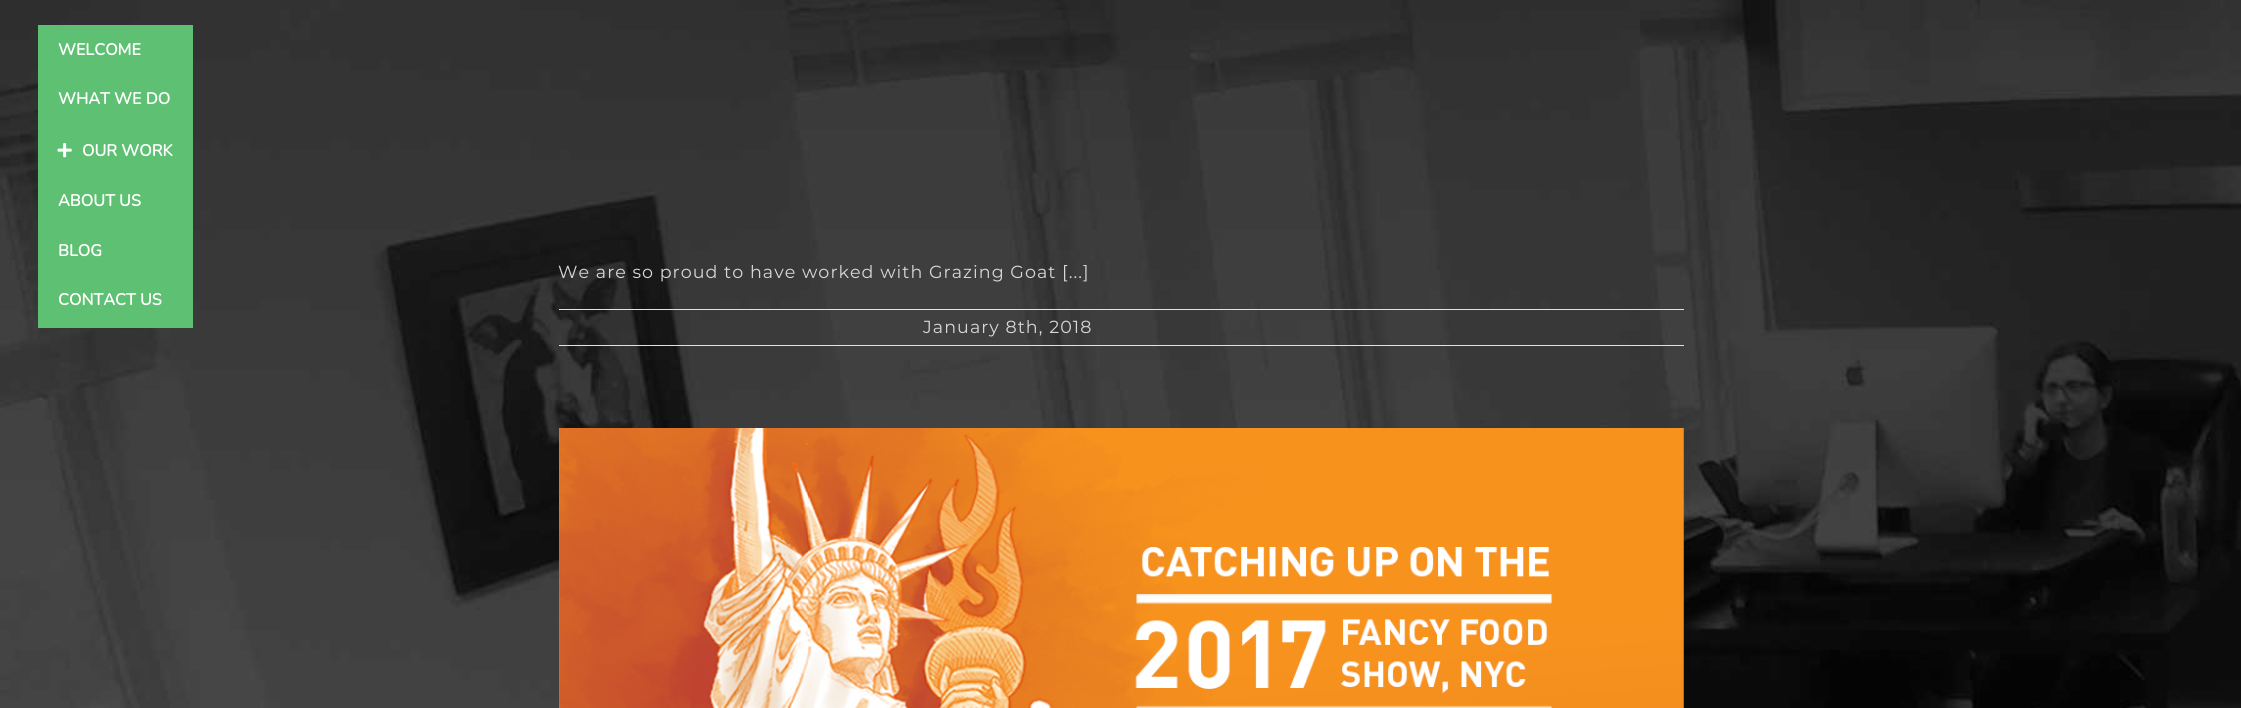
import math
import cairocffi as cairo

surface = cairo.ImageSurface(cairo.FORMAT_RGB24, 2241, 708)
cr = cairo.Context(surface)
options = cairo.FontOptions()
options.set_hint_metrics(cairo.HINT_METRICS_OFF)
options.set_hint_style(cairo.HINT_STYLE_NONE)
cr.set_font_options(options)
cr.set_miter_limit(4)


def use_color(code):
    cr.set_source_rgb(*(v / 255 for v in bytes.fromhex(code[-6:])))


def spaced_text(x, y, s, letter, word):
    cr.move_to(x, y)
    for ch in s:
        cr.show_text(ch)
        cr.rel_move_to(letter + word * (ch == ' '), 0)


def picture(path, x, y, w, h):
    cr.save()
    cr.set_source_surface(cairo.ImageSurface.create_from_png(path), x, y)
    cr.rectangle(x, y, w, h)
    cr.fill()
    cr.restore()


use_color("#ffffff")
cr.paint()
picture("img1.png", 0, 0, 2241, 708)
use_color("#5ec073")
cr.rectangle(38, 25, 155, 303)
cr.fill()
cr.select_font_face("Nunito", cairo.FONT_SLANT_NORMAL, cairo.FONT_WEIGHT_BOLD)
cr.set_font_size(16.25)
use_color("#ffffff")
cr.move_to(58, 55)
cr.show_text("WELCOME")
cr.move_to(58, 104)
cr.show_text("WHAT WE DO")
picture("img2.png", 57, 143, 15, 15)
cr.move_to(82, 156)
cr.show_text("OUR WORK")
cr.move_to(58, 206)
cr.show_text("ABOUT US")
cr.move_to(58, 256)
cr.show_text("BLOG")
cr.move_to(58, 305)
cr.show_text("CONTACT US")
cr.select_font_face("Montserrat")
cr.set_font_size(17.5)
use_color("#d7d7d7")
spaced_text(558, 278, "We are so proud to have worked with Grazing Goat [...]", 1.05, 0)
use_color("#e2e2e2")
cr.rectangle(559, 309, 1125, 1)
cr.fill()
cr.rectangle(559, 345, 1125, 1)
cr.fill()
use_color("#d7d7d7")
spaced_text(923, 333, "January 8th, 2018", 1.05, 0)
picture("img3.png", 559, 428, 1125, 280)
surface.write_to_png("result.png")
